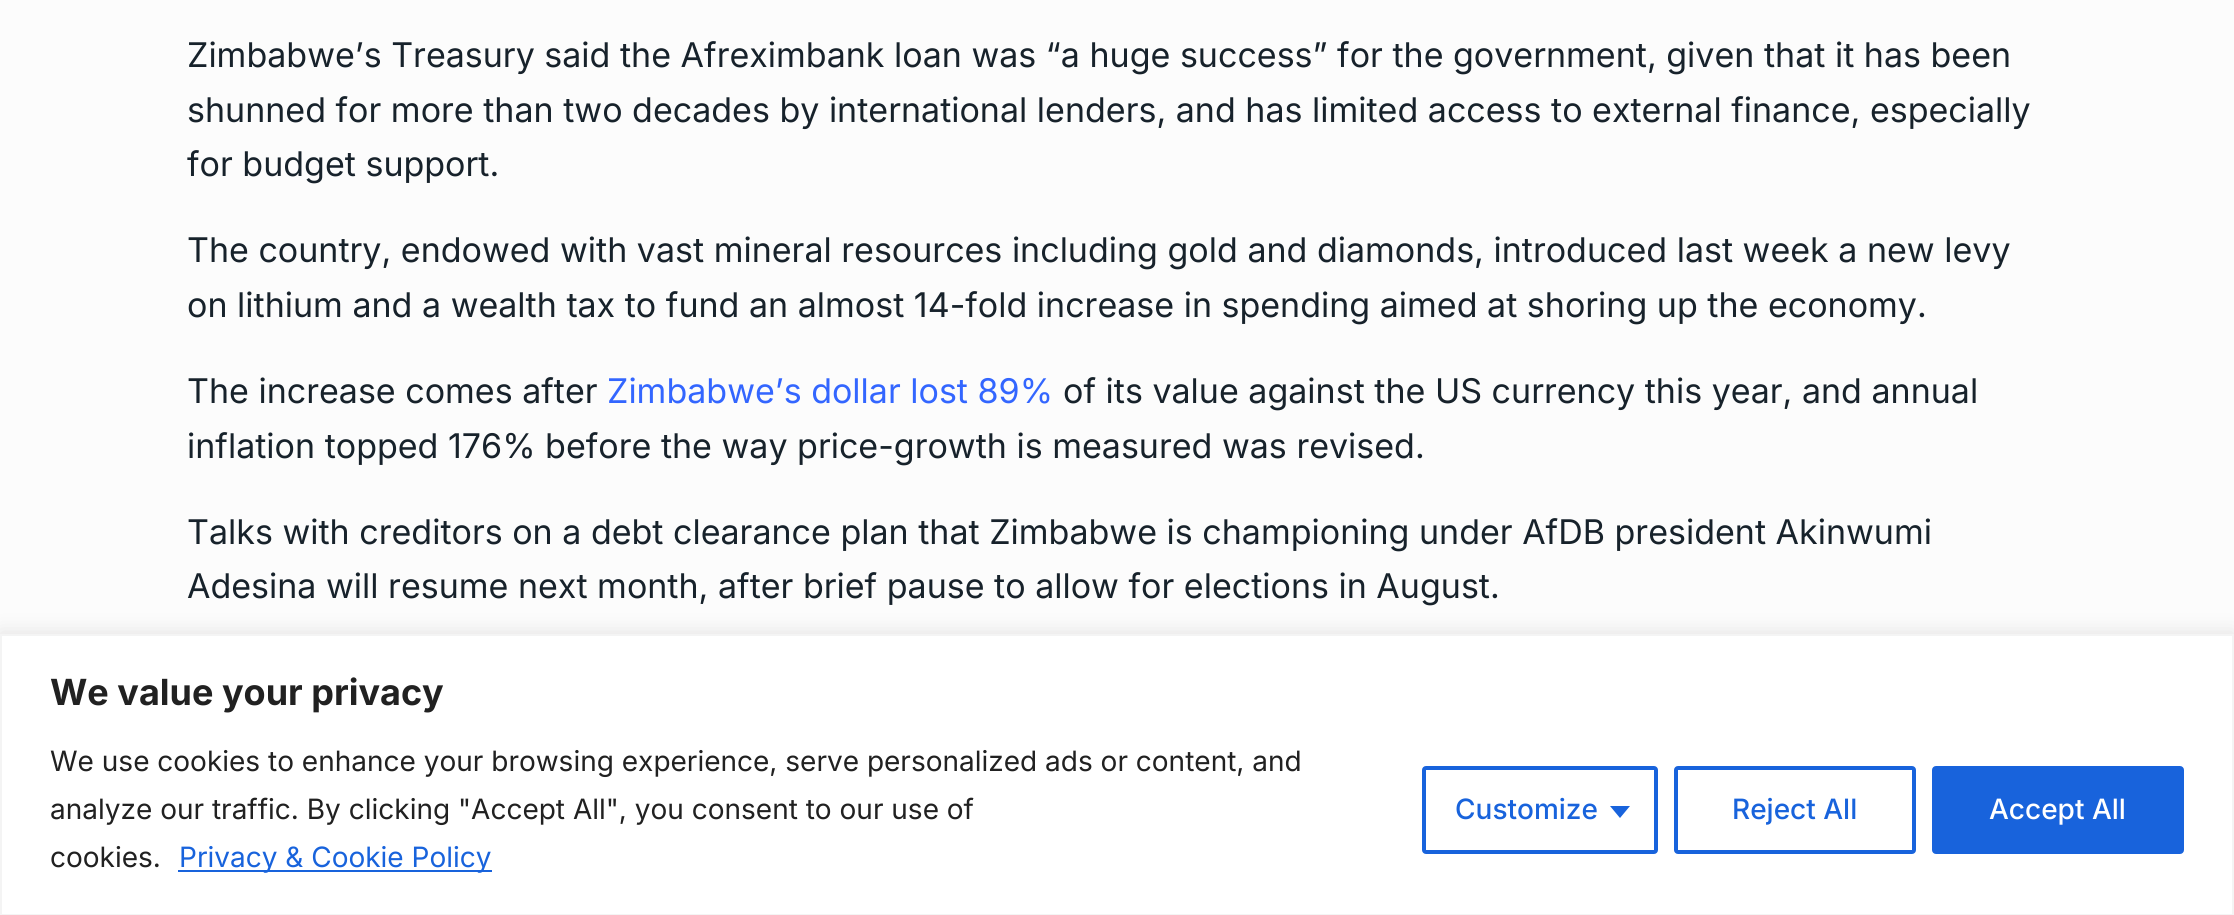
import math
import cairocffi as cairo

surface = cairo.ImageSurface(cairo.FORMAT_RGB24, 2234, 915)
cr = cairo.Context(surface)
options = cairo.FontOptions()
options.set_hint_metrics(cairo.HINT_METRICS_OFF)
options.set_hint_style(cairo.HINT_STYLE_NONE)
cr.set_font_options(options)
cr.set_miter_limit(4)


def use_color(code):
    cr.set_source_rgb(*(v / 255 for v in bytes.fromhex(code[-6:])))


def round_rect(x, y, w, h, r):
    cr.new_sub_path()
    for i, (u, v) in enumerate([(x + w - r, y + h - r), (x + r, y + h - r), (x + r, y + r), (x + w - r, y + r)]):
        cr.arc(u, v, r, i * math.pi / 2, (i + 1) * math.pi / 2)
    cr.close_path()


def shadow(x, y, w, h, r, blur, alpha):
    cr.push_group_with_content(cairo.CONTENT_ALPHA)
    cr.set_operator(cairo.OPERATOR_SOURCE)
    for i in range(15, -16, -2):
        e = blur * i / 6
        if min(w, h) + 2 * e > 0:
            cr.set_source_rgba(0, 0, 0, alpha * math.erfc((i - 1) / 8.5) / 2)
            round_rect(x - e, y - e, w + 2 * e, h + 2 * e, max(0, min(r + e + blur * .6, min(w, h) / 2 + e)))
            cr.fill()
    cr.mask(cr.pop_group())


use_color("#fcfcfc")
cr.paint()
cr.select_font_face("Inter")
cr.set_font_size(34)
use_color("#17222b")
cr.move_to(187, 67)
cr.show_text("Zimbabwe’s Treasury said the Afreximbank loan was “a huge success” for the government, given that it has been")
cr.move_to(187, 122)
cr.show_text("shunned for more than two decades by international lenders, and has limited access to external finance, especially")
cr.move_to(187, 176)
cr.show_text("for budget support.")
cr.move_to(187, 262)
cr.show_text("The country, endowed with vast mineral resources including gold and diamonds, introduced last week a new levy")
cr.move_to(187, 317)
cr.show_text("on lithium and a wealth tax to fund an almost 14-fold increase in spending aimed at shoring up the economy.")
cr.move_to(187, 403)
cr.show_text("The increase comes after")
use_color("#3366ff")
cr.move_to(607, 403)
cr.show_text("Zimbabwe’s dollar lost 89%")
use_color("#17222b")
cr.move_to(1063, 403)
cr.show_text("of its value against the US currency this year, and annual")
cr.move_to(187, 458)
cr.show_text("inflation topped 176% before the way price-growth is measured was revised.")
cr.move_to(187, 544)
cr.show_text("Talks with creditors on a debt clearance plan that Zimbabwe is championing under AfDB president Akinwumi")
cr.move_to(187, 598)
cr.show_text("Adesina will resume next month, after brief pause to allow for elections in August.")
use_color("#acabab")
shadow(0, 632, 2234, 282, 0, 10, 0.3)
use_color("#ffffff")
cr.rectangle(1, 635, 2232, 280)
cr.fill_preserve()
use_color("#f4f4f4")
cr.stroke()
cr.select_font_face("Inter", cairo.FONT_SLANT_NORMAL, cairo.FONT_WEIGHT_BOLD)
cr.set_font_size(36)
use_color("#212121")
cr.move_to(50, 705)
cr.show_text("We value your privacy")
cr.select_font_face("Inter")
cr.set_font_size(28)
cr.move_to(50, 771)
cr.show_text("We use cookies to enhance your browsing experience, serve personalized ads or content, and")
cr.move_to(50, 819)
cr.show_text("analyze our traffic. By clicking \"Accept All\", you consent to our use of")
cr.move_to(50, 867)
cr.show_text("cookies.")
use_color("#1863dc")
cr.rectangle(178, 870, 314, 2)
cr.fill()
cr.move_to(179, 867)
cr.show_text("Privacy & Cookie Policy")
round_rect(1424, 768, 232, 84, 2)
cr.set_line_width(4)
cr.stroke()
cr.select_font_face("Inter Medium")
cr.move_to(1455, 819)
cr.show_text("Customize")
cr.new_path()
cr.move_to(1610, 806)
cr.line_to(1630, 806)
cr.line_to(1620, 818)
cr.close_path()
cr.fill()
round_rect(1676, 768, 238, 84, 2)
cr.stroke()
cr.move_to(1732, 819)
cr.show_text("Reject All")
round_rect(1934, 768, 248, 84, 2)
cr.fill_preserve()
cr.stroke()
use_color("#ffffff")
cr.move_to(1989, 819)
cr.show_text("Accept All")
surface.write_to_png("result.png")
